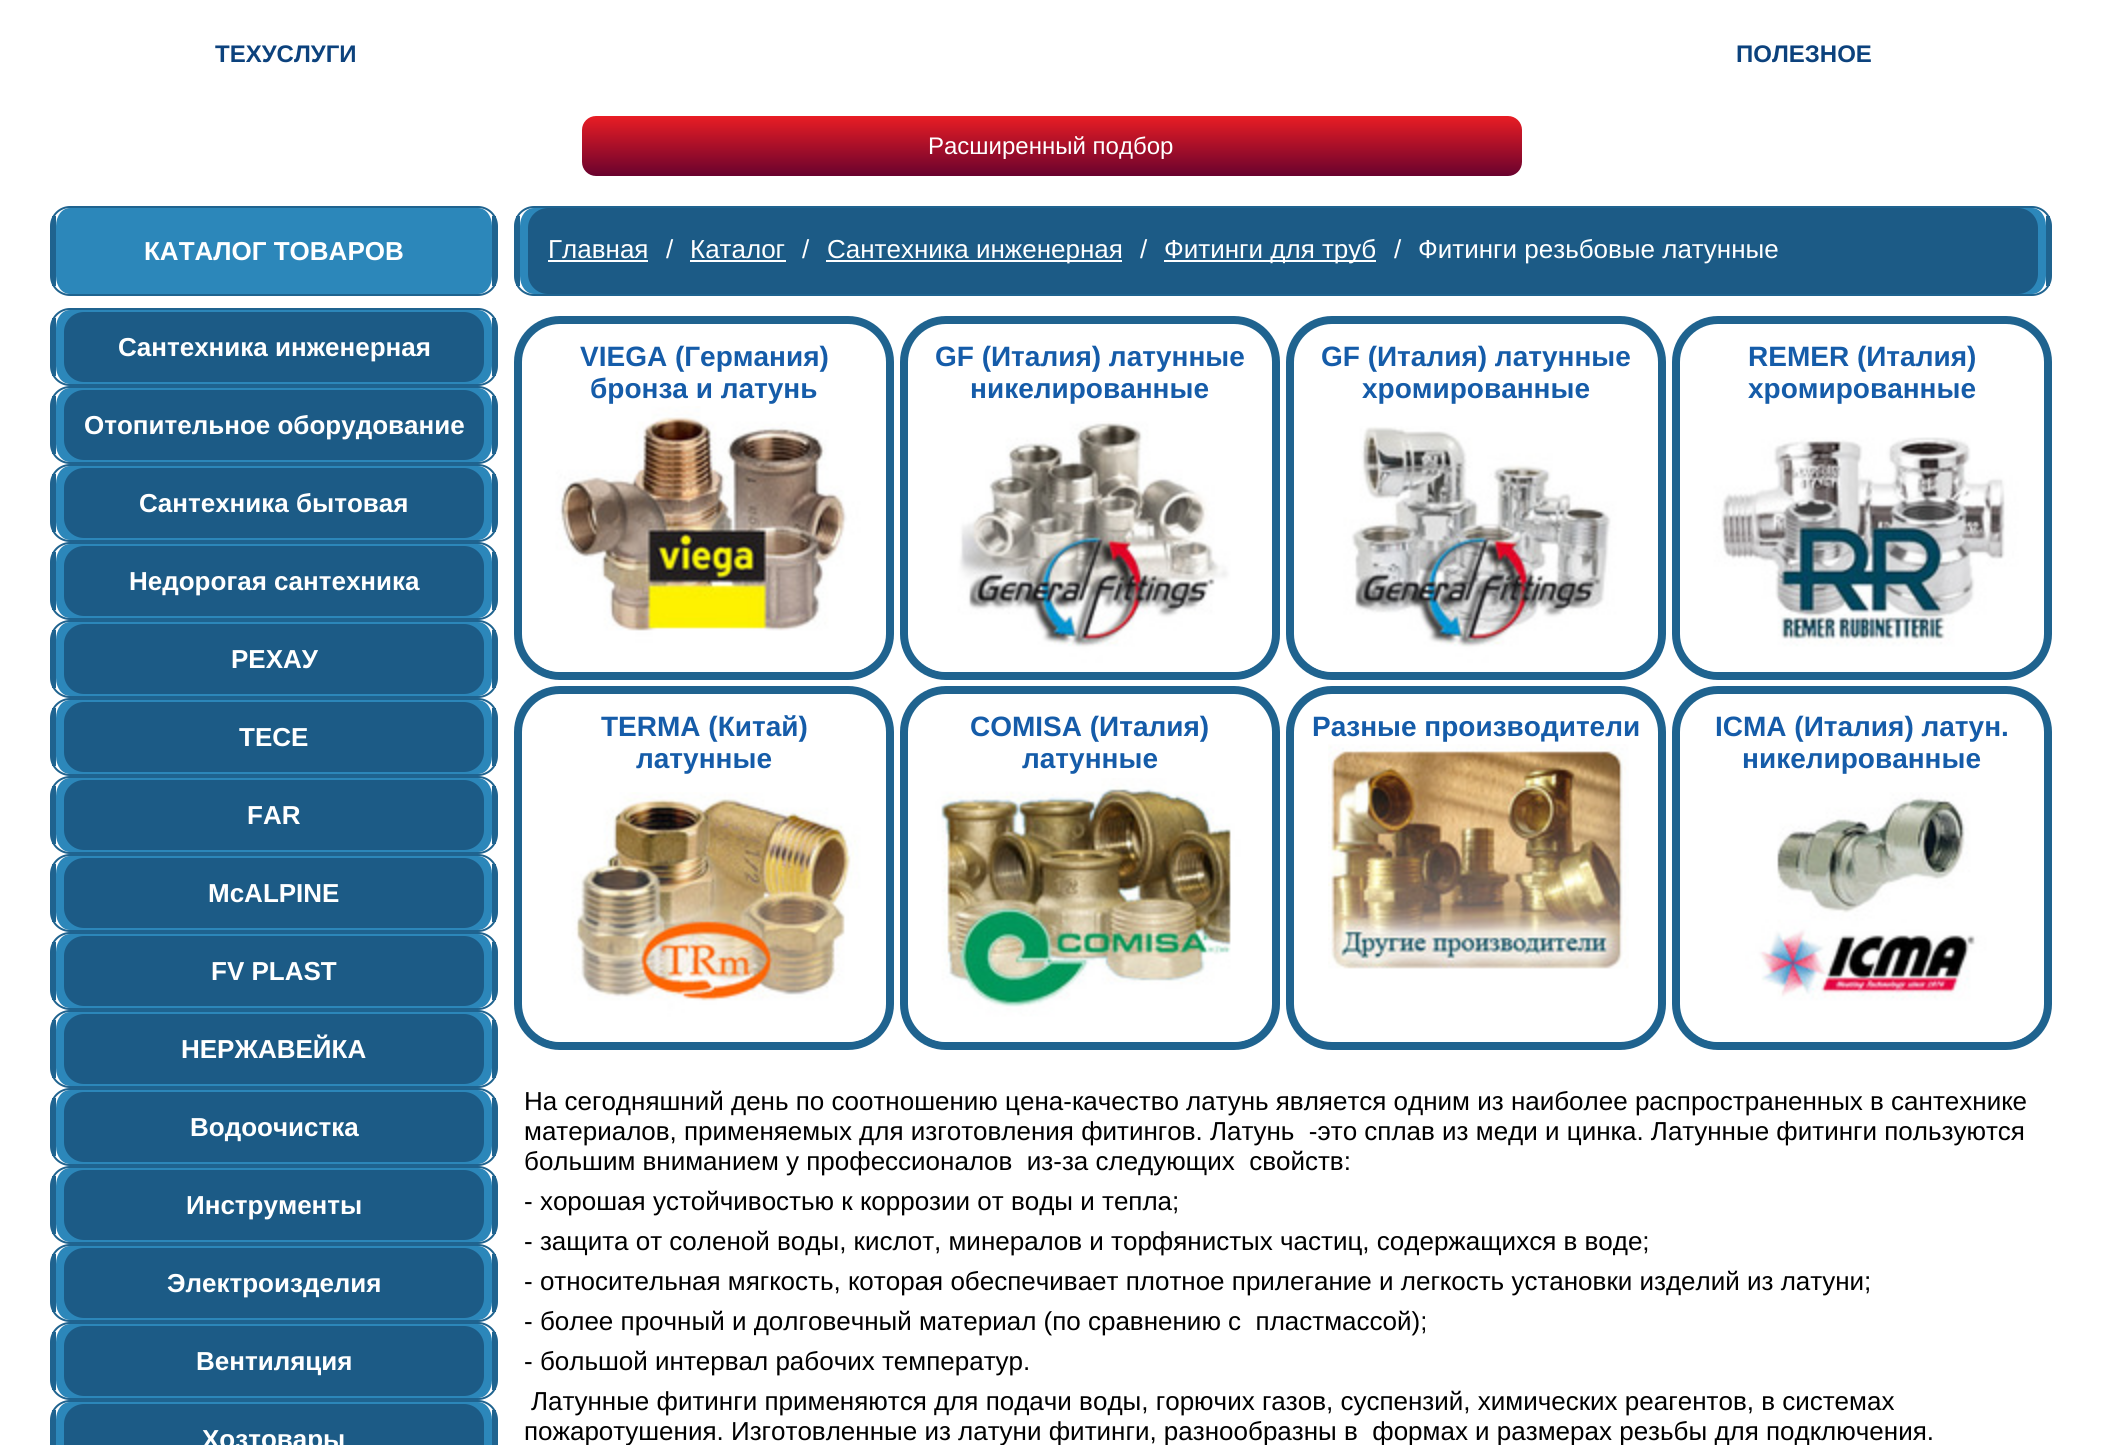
import math
import cairocffi as cairo

surface = cairo.ImageSurface(cairo.FORMAT_RGB24, 2101, 1445)
cr = cairo.Context(surface)
options = cairo.FontOptions()
options.set_hint_metrics(cairo.HINT_METRICS_OFF)
options.set_hint_style(cairo.HINT_STYLE_NONE)
cr.set_font_options(options)
cr.set_miter_limit(4)


def use_color(code):
    cr.set_source_rgb(*(v / 255 for v in bytes.fromhex(code[-6:])))


def round_rect(x, y, w, h, r):
    cr.new_sub_path()
    for i, (u, v) in enumerate([(x + w - r, y + h - r), (x + r, y + h - r), (x + r, y + r), (x + w - r, y + r)]):
        cr.arc(u, v, r, i * math.pi / 2, (i + 1) * math.pi / 2)
    cr.close_path()


def picture(path, x, y, w, h):
    cr.save()
    cr.set_source_surface(cairo.ImageSurface.create_from_png(path), x, y)
    cr.rectangle(x, y, w, h)
    cr.fill()
    cr.restore()


use_color("#ffffff")
cr.paint()
cr.select_font_face("Liberation Sans", cairo.FONT_SLANT_NORMAL, cairo.FONT_WEIGHT_BOLD)
cr.set_font_size(24)
use_color("#0c427d")
cr.move_to(215, 62)
cr.show_text("ТЕХУСЛУГИ")
cr.move_to(1736, 62)
cr.show_text("ПОЛЕЗНОЕ")
gradient = cairo.LinearGradient(1052, 116, 1052, 176)
gradient.add_color_stop_rgba(0, 0.914, 0.114, 0.141, 1)
gradient.add_color_stop_rgba(1, 0.412, 0.008, 0.18, 1)
cr.set_source(gradient)
round_rect(582, 116, 940, 60, 14)
cr.fill()
cr.select_font_face("Liberation Sans")
use_color("#ffffff")
cr.move_to(928, 154)
cr.show_text("Расширенный подбор")
use_color("#2c87ba")
cr.new_path()
cr.move_to(70, 208)
cr.line_to(478, 208)
cr.curve_to(486, 208, 492, 216, 492, 226)
cr.line_to(492, 276)
cr.curve_to(492, 286, 486, 294, 478, 294)
cr.line_to(70, 294)
cr.curve_to(62, 294, 56, 286, 56, 276)
cr.line_to(56, 226)
cr.curve_to(56, 216, 62, 208, 70, 208)
cr.close_path()
cr.fill()
round_rect(51, 207, 446, 88, 19)
use_color("#1f638f")
cr.stroke()
cr.rectangle(492, 216, 4, 70)
cr.fill()
cr.rectangle(52, 216, 4, 70)
cr.fill()
cr.select_font_face("Liberation Sans", cairo.FONT_SLANT_NORMAL, cairo.FONT_WEIGHT_BOLD)
cr.set_font_size(26)
use_color("#ffffff")
cr.move_to(144, 260)
cr.show_text("КАТАЛОГ ТОВАРОВ")
use_color("#2c87ba")
cr.new_path()
cr.move_to(70, 310)
cr.line_to(478, 310)
cr.curve_to(486, 310, 492, 318, 492, 328)
cr.line_to(492, 366)
cr.curve_to(492, 376, 486, 384, 478, 384)
cr.line_to(70, 384)
cr.curve_to(62, 384, 56, 376, 56, 366)
cr.line_to(56, 328)
cr.curve_to(56, 318, 62, 310, 70, 310)
cr.close_path()
cr.fill()
round_rect(51, 309, 446, 76, 19)
use_color("#1f638f")
cr.stroke()
cr.rectangle(492, 318, 4, 58)
cr.fill()
cr.rectangle(52, 318, 4, 58)
cr.fill()
use_color("#1c5b86")
round_rect(64, 312, 420, 70, 20)
cr.fill()
use_color("#ffffff")
cr.move_to(118, 356)
cr.show_text("Сантехника инженерная")
use_color("#2c87ba")
cr.new_path()
cr.move_to(70, 388)
cr.line_to(478, 388)
cr.curve_to(486, 388, 492, 396, 492, 406)
cr.line_to(492, 444)
cr.curve_to(492, 454, 486, 462, 478, 462)
cr.line_to(70, 462)
cr.curve_to(62, 462, 56, 454, 56, 444)
cr.line_to(56, 406)
cr.curve_to(56, 396, 62, 388, 70, 388)
cr.close_path()
cr.fill()
round_rect(51, 387, 446, 76, 19)
use_color("#1f638f")
cr.stroke()
cr.rectangle(492, 396, 4, 58)
cr.fill()
cr.rectangle(52, 396, 4, 58)
cr.fill()
use_color("#1c5b86")
round_rect(64, 390, 420, 70, 20)
cr.fill()
use_color("#ffffff")
cr.move_to(84, 434)
cr.show_text("Отопительное оборудование")
use_color("#2c87ba")
cr.new_path()
cr.move_to(70, 466)
cr.line_to(478, 466)
cr.curve_to(486, 466, 492, 474, 492, 484)
cr.line_to(492, 522)
cr.curve_to(492, 532, 486, 540, 478, 540)
cr.line_to(70, 540)
cr.curve_to(62, 540, 56, 532, 56, 522)
cr.line_to(56, 484)
cr.curve_to(56, 474, 62, 466, 70, 466)
cr.close_path()
cr.fill()
round_rect(51, 465, 446, 76, 19)
use_color("#1f638f")
cr.stroke()
cr.rectangle(492, 474, 4, 58)
cr.fill()
cr.rectangle(52, 474, 4, 58)
cr.fill()
use_color("#1c5b86")
round_rect(64, 468, 420, 70, 20)
cr.fill()
use_color("#ffffff")
cr.move_to(139, 512)
cr.show_text("Сантехника бытовая")
use_color("#2c87ba")
cr.new_path()
cr.move_to(70, 544)
cr.line_to(478, 544)
cr.curve_to(486, 544, 492, 552, 492, 562)
cr.line_to(492, 600)
cr.curve_to(492, 610, 486, 618, 478, 618)
cr.line_to(70, 618)
cr.curve_to(62, 618, 56, 610, 56, 600)
cr.line_to(56, 562)
cr.curve_to(56, 552, 62, 544, 70, 544)
cr.close_path()
cr.fill()
round_rect(51, 543, 446, 76, 19)
use_color("#1f638f")
cr.stroke()
cr.rectangle(492, 552, 4, 58)
cr.fill()
cr.rectangle(52, 552, 4, 58)
cr.fill()
use_color("#1c5b86")
round_rect(64, 546, 420, 70, 20)
cr.fill()
use_color("#ffffff")
cr.move_to(129, 590)
cr.show_text("Недорогая сантехника")
use_color("#2c87ba")
cr.new_path()
cr.move_to(70, 622)
cr.line_to(478, 622)
cr.curve_to(486, 622, 492, 630, 492, 640)
cr.line_to(492, 678)
cr.curve_to(492, 688, 486, 696, 478, 696)
cr.line_to(70, 696)
cr.curve_to(62, 696, 56, 688, 56, 678)
cr.line_to(56, 640)
cr.curve_to(56, 630, 62, 622, 70, 622)
cr.close_path()
cr.fill()
round_rect(51, 621, 446, 76, 19)
use_color("#1f638f")
cr.stroke()
cr.rectangle(492, 630, 4, 58)
cr.fill()
cr.rectangle(52, 630, 4, 58)
cr.fill()
use_color("#1c5b86")
round_rect(64, 624, 420, 70, 20)
cr.fill()
use_color("#ffffff")
cr.move_to(231, 668)
cr.show_text("РЕХАУ")
use_color("#2c87ba")
cr.new_path()
cr.move_to(70, 700)
cr.line_to(478, 700)
cr.curve_to(486, 700, 492, 708, 492, 718)
cr.line_to(492, 756)
cr.curve_to(492, 766, 486, 774, 478, 774)
cr.line_to(70, 774)
cr.curve_to(62, 774, 56, 766, 56, 756)
cr.line_to(56, 718)
cr.curve_to(56, 708, 62, 700, 70, 700)
cr.close_path()
cr.fill()
round_rect(51, 699, 446, 76, 19)
use_color("#1f638f")
cr.stroke()
cr.rectangle(492, 708, 4, 58)
cr.fill()
cr.rectangle(52, 708, 4, 58)
cr.fill()
use_color("#1c5b86")
round_rect(64, 702, 420, 70, 20)
cr.fill()
use_color("#ffffff")
cr.move_to(239, 746)
cr.show_text("TECE")
use_color("#2c87ba")
cr.new_path()
cr.move_to(70, 778)
cr.line_to(478, 778)
cr.curve_to(486, 778, 492, 786, 492, 796)
cr.line_to(492, 834)
cr.curve_to(492, 844, 486, 852, 478, 852)
cr.line_to(70, 852)
cr.curve_to(62, 852, 56, 844, 56, 834)
cr.line_to(56, 796)
cr.curve_to(56, 786, 62, 778, 70, 778)
cr.close_path()
cr.fill()
round_rect(51, 777, 446, 76, 19)
use_color("#1f638f")
cr.stroke()
cr.rectangle(492, 786, 4, 58)
cr.fill()
cr.rectangle(52, 786, 4, 58)
cr.fill()
use_color("#1c5b86")
round_rect(64, 780, 420, 70, 20)
cr.fill()
use_color("#ffffff")
cr.move_to(247, 824)
cr.show_text("FAR")
use_color("#2c87ba")
cr.new_path()
cr.move_to(70, 856)
cr.line_to(478, 856)
cr.curve_to(486, 856, 492, 864, 492, 874)
cr.line_to(492, 912)
cr.curve_to(492, 922, 486, 930, 478, 930)
cr.line_to(70, 930)
cr.curve_to(62, 930, 56, 922, 56, 912)
cr.line_to(56, 874)
cr.curve_to(56, 864, 62, 856, 70, 856)
cr.close_path()
cr.fill()
round_rect(51, 855, 446, 76, 19)
use_color("#1f638f")
cr.stroke()
cr.rectangle(492, 864, 4, 58)
cr.fill()
cr.rectangle(52, 864, 4, 58)
cr.fill()
use_color("#1c5b86")
round_rect(64, 858, 420, 70, 20)
cr.fill()
use_color("#ffffff")
cr.move_to(208, 902)
cr.show_text("McALPINE")
use_color("#2c87ba")
cr.new_path()
cr.move_to(70, 934)
cr.line_to(478, 934)
cr.curve_to(486, 934, 492, 942, 492, 952)
cr.line_to(492, 990)
cr.curve_to(492, 1000, 486, 1008, 478, 1008)
cr.line_to(70, 1008)
cr.curve_to(62, 1008, 56, 1000, 56, 990)
cr.line_to(56, 952)
cr.curve_to(56, 942, 62, 934, 70, 934)
cr.close_path()
cr.fill()
round_rect(51, 933, 446, 76, 19)
use_color("#1f638f")
cr.stroke()
cr.rectangle(492, 942, 4, 58)
cr.fill()
cr.rectangle(52, 942, 4, 58)
cr.fill()
use_color("#1c5b86")
round_rect(64, 936, 420, 70, 20)
cr.fill()
use_color("#ffffff")
cr.move_to(211, 980)
cr.show_text("FV PLAST")
use_color("#2c87ba")
cr.new_path()
cr.move_to(70, 1012)
cr.line_to(478, 1012)
cr.curve_to(486, 1012, 492, 1020, 492, 1030)
cr.line_to(492, 1068)
cr.curve_to(492, 1078, 486, 1086, 478, 1086)
cr.line_to(70, 1086)
cr.curve_to(62, 1086, 56, 1078, 56, 1068)
cr.line_to(56, 1030)
cr.curve_to(56, 1020, 62, 1012, 70, 1012)
cr.close_path()
cr.fill()
round_rect(51, 1011, 446, 76, 19)
use_color("#1f638f")
cr.stroke()
cr.rectangle(492, 1020, 4, 58)
cr.fill()
cr.rectangle(52, 1020, 4, 58)
cr.fill()
use_color("#1c5b86")
round_rect(64, 1014, 420, 70, 20)
cr.fill()
use_color("#ffffff")
cr.move_to(181, 1058)
cr.show_text("НЕРЖАВЕЙКА")
use_color("#2c87ba")
cr.new_path()
cr.move_to(70, 1090)
cr.line_to(478, 1090)
cr.curve_to(486, 1090, 492, 1098, 492, 1108)
cr.line_to(492, 1146)
cr.curve_to(492, 1156, 486, 1164, 478, 1164)
cr.line_to(70, 1164)
cr.curve_to(62, 1164, 56, 1156, 56, 1146)
cr.line_to(56, 1108)
cr.curve_to(56, 1098, 62, 1090, 70, 1090)
cr.close_path()
cr.fill()
round_rect(51, 1089, 446, 76, 19)
use_color("#1f638f")
cr.stroke()
cr.rectangle(492, 1098, 4, 58)
cr.fill()
cr.rectangle(52, 1098, 4, 58)
cr.fill()
use_color("#1c5b86")
round_rect(64, 1092, 420, 70, 20)
cr.fill()
use_color("#ffffff")
cr.move_to(190, 1136)
cr.show_text("Водоочистка")
use_color("#2c87ba")
cr.new_path()
cr.move_to(70, 1168)
cr.line_to(478, 1168)
cr.curve_to(486, 1168, 492, 1176, 492, 1186)
cr.line_to(492, 1224)
cr.curve_to(492, 1234, 486, 1242, 478, 1242)
cr.line_to(70, 1242)
cr.curve_to(62, 1242, 56, 1234, 56, 1224)
cr.line_to(56, 1186)
cr.curve_to(56, 1176, 62, 1168, 70, 1168)
cr.close_path()
cr.fill()
round_rect(51, 1167, 446, 76, 19)
use_color("#1f638f")
cr.stroke()
cr.rectangle(492, 1176, 4, 58)
cr.fill()
cr.rectangle(52, 1176, 4, 58)
cr.fill()
use_color("#1c5b86")
round_rect(64, 1170, 420, 70, 20)
cr.fill()
use_color("#ffffff")
cr.move_to(186, 1214)
cr.show_text("Инструменты")
use_color("#2c87ba")
cr.new_path()
cr.move_to(70, 1246)
cr.line_to(478, 1246)
cr.curve_to(486, 1246, 492, 1254, 492, 1264)
cr.line_to(492, 1302)
cr.curve_to(492, 1312, 486, 1320, 478, 1320)
cr.line_to(70, 1320)
cr.curve_to(62, 1320, 56, 1312, 56, 1302)
cr.line_to(56, 1264)
cr.curve_to(56, 1254, 62, 1246, 70, 1246)
cr.close_path()
cr.fill()
round_rect(51, 1245, 446, 76, 19)
use_color("#1f638f")
cr.stroke()
cr.rectangle(492, 1254, 4, 58)
cr.fill()
cr.rectangle(52, 1254, 4, 58)
cr.fill()
use_color("#1c5b86")
round_rect(64, 1248, 420, 70, 20)
cr.fill()
use_color("#ffffff")
cr.move_to(167, 1292)
cr.show_text("Электроизделия")
use_color("#2c87ba")
cr.new_path()
cr.move_to(70, 1324)
cr.line_to(478, 1324)
cr.curve_to(486, 1324, 492, 1332, 492, 1342)
cr.line_to(492, 1380)
cr.curve_to(492, 1390, 486, 1398, 478, 1398)
cr.line_to(70, 1398)
cr.curve_to(62, 1398, 56, 1390, 56, 1380)
cr.line_to(56, 1342)
cr.curve_to(56, 1332, 62, 1324, 70, 1324)
cr.close_path()
cr.fill()
round_rect(51, 1323, 446, 76, 19)
use_color("#1f638f")
cr.stroke()
cr.rectangle(492, 1332, 4, 58)
cr.fill()
cr.rectangle(52, 1332, 4, 58)
cr.fill()
use_color("#1c5b86")
round_rect(64, 1326, 420, 70, 20)
cr.fill()
use_color("#ffffff")
cr.move_to(196, 1370)
cr.show_text("Вентиляция")
use_color("#2c87ba")
cr.new_path()
cr.move_to(70, 1402)
cr.line_to(478, 1402)
cr.curve_to(486, 1402, 492, 1410, 492, 1420)
cr.line_to(492, 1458)
cr.curve_to(492, 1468, 486, 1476, 478, 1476)
cr.line_to(70, 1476)
cr.curve_to(62, 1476, 56, 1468, 56, 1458)
cr.line_to(56, 1420)
cr.curve_to(56, 1410, 62, 1402, 70, 1402)
cr.close_path()
cr.fill()
round_rect(51, 1401, 446, 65, 19)
use_color("#1f638f")
cr.stroke()
cr.rectangle(492, 1410, 4, 35)
cr.fill()
cr.rectangle(52, 1410, 4, 35)
cr.fill()
use_color("#1c5b86")
round_rect(64, 1404, 420, 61, 20)
cr.fill()
use_color("#ffffff")
cr.move_to(202, 1448)
cr.show_text("Хозтовары")
use_color("#2c87ba")
cr.new_path()
cr.move_to(534, 208)
cr.line_to(2032, 208)
cr.curve_to(2040, 208, 2046, 216, 2046, 226)
cr.line_to(2046, 276)
cr.curve_to(2046, 286, 2040, 294, 2032, 294)
cr.line_to(534, 294)
cr.curve_to(526, 294, 520, 286, 520, 276)
cr.line_to(520, 226)
cr.curve_to(520, 216, 526, 208, 534, 208)
cr.close_path()
cr.fill()
round_rect(515, 207, 1536, 88, 19)
use_color("#1f638f")
cr.stroke()
cr.rectangle(2046, 216, 4, 70)
cr.fill()
cr.rectangle(516, 216, 4, 70)
cr.fill()
use_color("#1c5b86")
round_rect(528, 208, 1510, 86, 20)
cr.fill()
cr.select_font_face("Liberation Sans")
use_color("#ffffff")
cr.move_to(548, 258)
cr.show_text("Главная")
cr.rectangle(548, 260, 100, 2)
cr.fill()
cr.move_to(666, 258)
cr.show_text("/")
cr.move_to(690, 258)
cr.show_text("Каталог")
cr.rectangle(690, 260, 96, 2)
cr.fill()
cr.move_to(802, 258)
cr.show_text("/")
cr.rectangle(826, 260, 296, 2)
cr.fill()
cr.move_to(827, 258)
cr.show_text("Сантехника инженерная")
cr.move_to(1140, 258)
cr.show_text("/")
cr.rectangle(1164, 260, 212, 2)
cr.fill()
cr.move_to(1164, 258)
cr.show_text("Фитинги для труб")
cr.move_to(1394, 258)
cr.show_text("/")
cr.move_to(1418, 258)
cr.show_text("Фитинги резьбовые латунные")
round_rect(518, 320, 372, 356, 42)
use_color("#1f638f")
cr.set_line_width(8)
cr.stroke()
cr.select_font_face("Liberation Sans", cairo.FONT_SLANT_NORMAL, cairo.FONT_WEIGHT_BOLD)
cr.set_font_size(28)
use_color("#155ca9")
cr.move_to(580, 366)
cr.show_text("VIEGA (Германия)")
cr.move_to(590, 398)
cr.show_text("бронза и латунь")
picture("img1.png", 540, 406, 328, 266)
round_rect(904, 320, 372, 356, 42)
use_color("#1f638f")
cr.stroke()
use_color("#155ca9")
cr.move_to(935, 366)
cr.show_text("GF (Италия) латунные")
cr.move_to(970, 398)
cr.show_text("никелированные")
picture("img2.png", 926, 421, 328, 251)
round_rect(1290, 320, 372, 356, 42)
use_color("#1f638f")
cr.stroke()
use_color("#155ca9")
cr.move_to(1321, 366)
cr.show_text("GF (Италия) латунные")
cr.move_to(1362, 398)
cr.show_text("хромированные")
picture("img3.png", 1312, 426, 328, 246)
round_rect(1676, 320, 372, 356, 42)
use_color("#1f638f")
cr.stroke()
use_color("#155ca9")
cr.move_to(1748, 366)
cr.show_text("REMER (Италия)")
cr.move_to(1748, 398)
cr.show_text("хромированные")
picture("img4.png", 1698, 437, 328, 235)
round_rect(518, 690, 372, 356, 42)
use_color("#1f638f")
cr.stroke()
use_color("#155ca9")
cr.move_to(601, 736)
cr.show_text("TERMA (Китай)")
cr.move_to(636, 768)
cr.show_text("латунные")
picture("img5.png", 540, 792, 328, 250)
round_rect(904, 690, 372, 356, 42)
use_color("#1f638f")
cr.stroke()
use_color("#155ca9")
cr.move_to(970, 736)
cr.show_text("COMISA (Италия)")
cr.move_to(1022, 768)
cr.show_text("латунные")
picture("img6.png", 926, 778, 328, 264)
round_rect(1290, 690, 372, 356, 42)
use_color("#1f638f")
cr.stroke()
use_color("#155ca9")
cr.move_to(1312, 736)
cr.show_text("Разные производители")
picture("img7.png", 1328, 744, 301, 225)
round_rect(1676, 690, 372, 356, 42)
use_color("#1f638f")
cr.stroke()
use_color("#155ca9")
cr.move_to(1715, 736)
cr.show_text("ICMA (Италия) латун.")
cr.move_to(1742, 768)
cr.show_text("никелированные")
picture("img8.png", 1698, 792, 328, 250)
cr.select_font_face("Liberation Sans")
cr.set_font_size(26)
use_color("#000000")
cr.move_to(524, 1110)
cr.show_text("На сегодняшний день по соотношению цена-качество латунь является одним из наиболее распространенных в сантехнике")
cr.move_to(524, 1140)
cr.show_text("материалов, применяемых для изготовления фитингов. Латунь  -это сплав из меди и цинка. Латунные фитинги пользуются")
cr.move_to(524, 1170)
cr.show_text("большим вниманием у профессионалов  из-за следующих  свойств:")
cr.move_to(524, 1210)
cr.show_text("- хорошая устойчивостью к коррозии от воды и тепла;")
cr.move_to(524, 1250)
cr.show_text("- защита от соленой воды, кислот, минералов и торфянистых частиц, содержащихся в воде;")
cr.move_to(524, 1290)
cr.show_text("- относительная мягкость, которая обеспечивает плотное прилегание и легкость установки изделий из латуни;")
cr.move_to(524, 1330)
cr.show_text("- более прочный и долговечный материал (по сравнению с  пластмассой);")
cr.move_to(524, 1370)
cr.show_text("- большой интервал рабочих температур.")
cr.move_to(531, 1410)
cr.show_text("Латунные фитинги применяются для подачи воды, горючих газов, суспензий, химических реагентов, в системах")
cr.move_to(524, 1440)
cr.show_text("пожаротушения. Изготовленные из латуни фитинги, разнообразны в  формах и размерах резьбы для подключения.")
surface.write_to_png("result.png")
